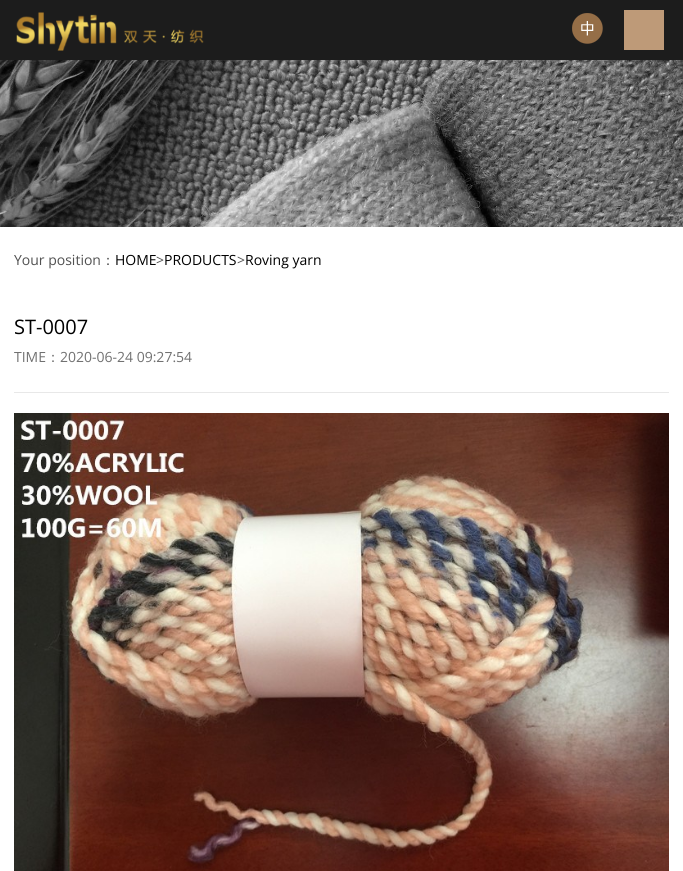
import math
import cairocffi as cairo

surface = cairo.ImageSurface(cairo.FORMAT_RGB24, 683, 871)
cr = cairo.Context(surface)
options = cairo.FontOptions()
options.set_hint_metrics(cairo.HINT_METRICS_OFF)
options.set_hint_style(cairo.HINT_STYLE_NONE)
cr.set_font_options(options)
cr.set_miter_limit(4)


def use_color(code):
    cr.set_source_rgb(*(v / 255 for v in bytes.fromhex(code[-6:])))


def picture(path, x, y, w, h):
    cr.save()
    cr.set_source_surface(cairo.ImageSurface.create_from_png(path), x, y)
    cr.rectangle(x, y, w, h)
    cr.fill()
    cr.restore()


use_color("#ffffff")
cr.paint()
use_color("#1c1c1c")
cr.rectangle(0, 0, 683, 60)
cr.fill()
picture("img1.png", 16, 12, 188, 39)
picture("img2.png", 572, 13, 31, 31)
use_color("#be9a78")
cr.rectangle(624, 10, 40, 40)
cr.fill()
picture("img3.png", 0, 60, 683, 167)
cr.select_font_face("Open Sans")
cr.set_font_size(14)
use_color("#515151")
cr.move_to(14, 265)
cr.show_text("Your position")
cr.select_font_face("WenQuanYi Zen Hei Medium")
cr.move_to(101, 265)
cr.show_text("：")
cr.select_font_face("Open Sans")
use_color("#000000")
cr.move_to(115, 265)
cr.show_text("HOME")
use_color("#515151")
cr.move_to(156, 265)
cr.show_text(">")
use_color("#000000")
cr.move_to(164, 265)
cr.show_text("PRODUCTS")
use_color("#515151")
cr.move_to(237, 265)
cr.show_text(">")
use_color("#000000")
cr.move_to(245, 265)
cr.show_text("Roving yarn")
use_color("#e8e8e8")
cr.rectangle(14, 392, 655, 1)
cr.fill()
cr.set_font_size(20)
use_color("#000000")
cr.move_to(14, 334)
cr.show_text("ST-0007")
cr.set_font_size(14)
use_color("#717171")
cr.move_to(14, 362)
cr.show_text("TIME")
cr.select_font_face("WenQuanYi Zen Hei Medium")
cr.move_to(46, 362)
cr.show_text("：")
cr.select_font_face("Open Sans")
cr.move_to(60, 362)
cr.show_text("2020-06-24 09:27:54")
picture("img4.png", 14, 413, 655, 458)
surface.write_to_png("result.png")
